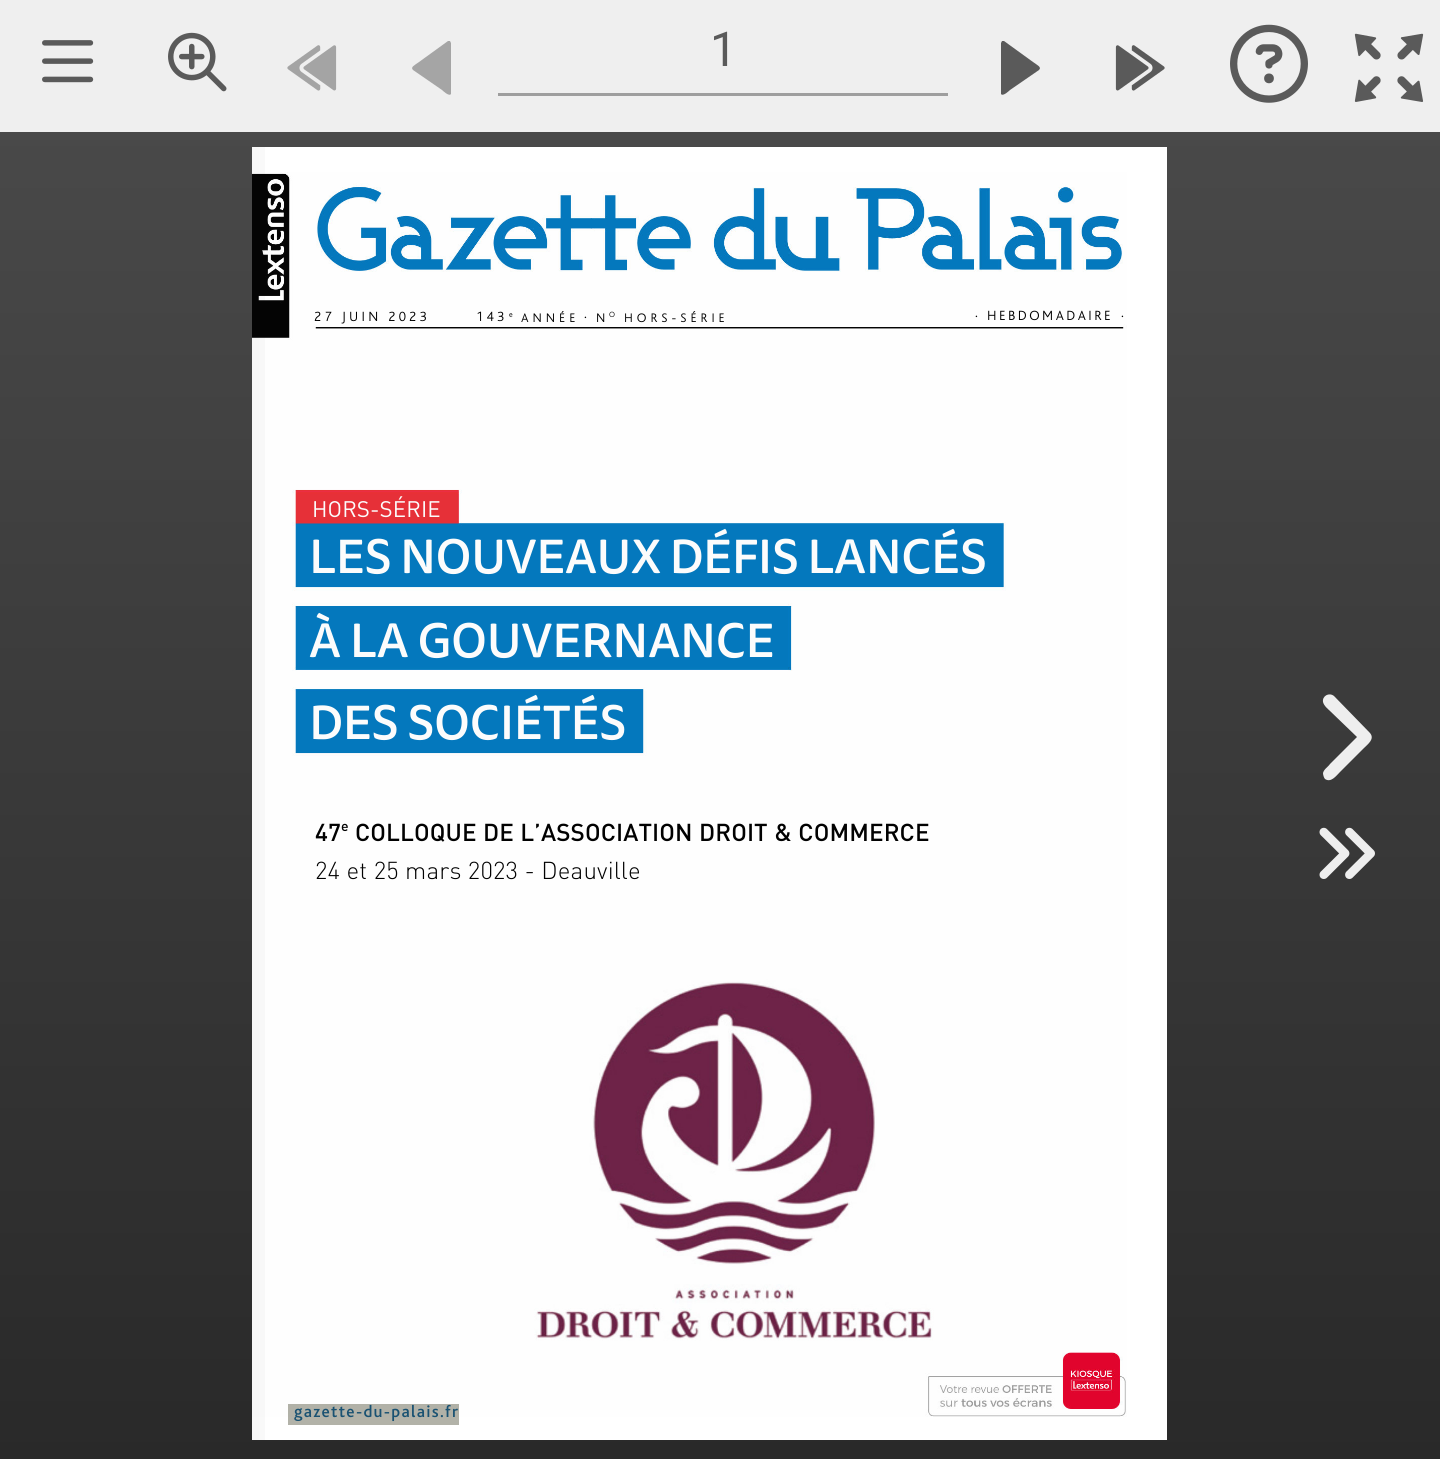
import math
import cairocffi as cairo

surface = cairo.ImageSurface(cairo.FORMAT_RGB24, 1440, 1459)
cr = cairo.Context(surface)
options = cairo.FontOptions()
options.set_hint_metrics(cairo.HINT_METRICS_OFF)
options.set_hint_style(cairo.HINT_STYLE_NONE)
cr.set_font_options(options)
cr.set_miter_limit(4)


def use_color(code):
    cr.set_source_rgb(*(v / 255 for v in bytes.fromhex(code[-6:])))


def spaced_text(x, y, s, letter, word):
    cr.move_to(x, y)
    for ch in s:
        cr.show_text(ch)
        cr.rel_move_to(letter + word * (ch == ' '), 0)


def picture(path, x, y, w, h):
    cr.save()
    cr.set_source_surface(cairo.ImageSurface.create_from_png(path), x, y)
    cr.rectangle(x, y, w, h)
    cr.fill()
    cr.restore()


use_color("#ffffff")
cr.paint()
gradient = cairo.LinearGradient(720, 0, 720, 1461)
gradient.add_color_stop_rgba(0, 0.298, 0.298, 0.298, 1)
gradient.add_color_stop_rgba(1, 0.161, 0.161, 0.161, 1)
cr.set_source(gradient)
cr.rectangle(0, 132, 1440, 1327)
cr.fill()
use_color("#efefef")
cr.rectangle(0, 0, 1440, 132)
cr.fill()
picture("img1.png", 42, 40, 52, 43)
picture("img2.png", 168, 32, 59, 60)
picture("img3.png", 287, 45, 50, 46)
use_color("#a5a5a5")
cr.new_path()
cr.move_to(413, 70)
cr.line_to(442, 90)
cr.curve_to(442, 90, 449, 97, 451, 94)
cr.line_to(451, 43)
cr.line_to(450, 41)
cr.curve_to(450, 41, 449, 41, 448, 41)
cr.line_to(419, 62)
cr.curve_to(415, 65, 410, 67, 413, 70)
cr.close_path()
cr.fill()
use_color("#9e9e9e")
cr.rectangle(498, 93, 450, 3)
cr.fill()
cr.select_font_face("Roboto")
cr.set_font_size(48)
use_color("#5a5a5a")
cr.move_to(710, 66)
cr.show_text("1")
cr.new_path()
cr.move_to(1039, 70)
cr.line_to(1010, 90)
cr.curve_to(1010, 90, 1003, 97, 1001, 94)
cr.line_to(1001, 43)
cr.line_to(1002, 41)
cr.curve_to(1002, 41, 1003, 41, 1004, 41)
cr.line_to(1033, 62)
cr.curve_to(1037, 65, 1042, 67, 1039, 70)
cr.close_path()
cr.fill()
picture("img4.png", 1115, 45, 50, 46)
picture("img5.png", 1230, 24, 78, 79)
picture("img6.png", 1354, 33, 70, 69)
use_color("#ffffff")
cr.rectangle(252, 147, 915, 1293)
cr.fill()
picture("img7.png", 252, 219, 831, 1146)
picture("img8.png", 339, 308, 234, 31)
picture("img9.png", 339, 1378, 30, 9)
picture("img10.png", 372, 1378, 187, 12)
picture("img11.png", 252, 172, 875, 1245)
gradient = cairo.LinearGradient(1167, 797, 252, 797)
gradient.add_color_stop_rgba(0.95, 0, 0, 0, 0)
gradient.add_color_stop_rgba(1, 0, 0, 0, 0.03)
cr.set_source(gradient)
cr.rectangle(252, 147, 13, 1293)
cr.fill()
cr.select_font_face("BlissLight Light")
cr.set_font_size(14)
use_color("#010101")
spaced_text(314, 321, "27 JUIN 2023", 3.25, 0)
spaced_text(476, 321, "143", 3.25, 0)
cr.set_font_size(8)
cr.move_to(509, 317)
cr.show_text("e")
cr.set_font_size(13)
spaced_text(521, 322, "ANNÉE", 4, 0)
cr.set_font_size(14)
cr.move_to(584, 318)
cr.show_text(".")
cr.set_font_size(13)
cr.move_to(596, 322)
cr.show_text("N")
cr.set_font_size(8)
cr.move_to(609, 317)
cr.show_text("O")
cr.set_font_size(13)
spaced_text(624, 322, "HORS-SÉRIE", 4, 0)
cr.set_font_size(14)
cr.move_to(975, 317)
cr.show_text(".")
spaced_text(987, 320, "HEBDOMADAIRE", 2.5, 0)
cr.move_to(1121, 317)
cr.show_text(".")
cr.select_font_face("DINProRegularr")
cr.set_font_size(22.25)
use_color("#fcfcfc")
spaced_text(312, 517, "HORS-SÉRIE", 0.1, 0)
cr.select_font_face("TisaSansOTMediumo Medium")
cr.set_font_size(47.4)
spaced_text(309, 573, "LES NOUVEAUX DÉFIS LANCÉS", -0.4, 0)
spaced_text(309, 657, "À LA GOUVERNANCE", -0.25, 0)
spaced_text(309, 739, "DES SOCIÉTÉS", -0.25, 0)
cr.select_font_face("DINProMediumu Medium")
cr.set_font_size(24.2)
use_color("#010101")
cr.move_to(315, 841)
cr.show_text("47")
cr.set_font_size(14)
cr.move_to(341, 831)
cr.show_text("e")
cr.set_font_size(24.2)
spaced_text(355, 841, "COLLOQUE DE L’ASSOCIATION DROIT & COMMERCE", 0.1, 0.5)
cr.select_font_face("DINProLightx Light")
spaced_text(315, 879, "24 et 25 mars 2023 - Deauville", 0.15, 0)
cr.select_font_face("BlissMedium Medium")
cr.set_font_size(17.1)
use_color("#015fa5")
spaced_text(294, 1417, "gazette-du-palais.fr", 1.3, 0)
cr.set_source_rgba(0.247, 0.247, 0.149, 0.4)
cr.rectangle(288, 1404, 171, 21)
cr.fill()
use_color("#eeeeee")
cr.new_path()
cr.move_to(1370, 733)
cr.curve_to(1375, 739, 1368, 744, 1364, 748)
cr.line_to(1340, 772)
cr.curve_to(1336, 776, 1331, 783, 1325, 779)
cr.curve_to(1324, 778, 1323, 775, 1323, 773)
cr.curve_to(1324, 769, 1328, 767, 1330, 764)
cr.line_to(1357, 737)
cr.line_to(1330, 711)
cr.curve_to(1328, 709, 1324, 706, 1323, 702)
cr.curve_to(1322, 696, 1329, 692, 1334, 696)
cr.close_path()
cr.fill()
picture("img12.png", 1319, 827, 56, 52)
surface.write_to_png("result.png")
